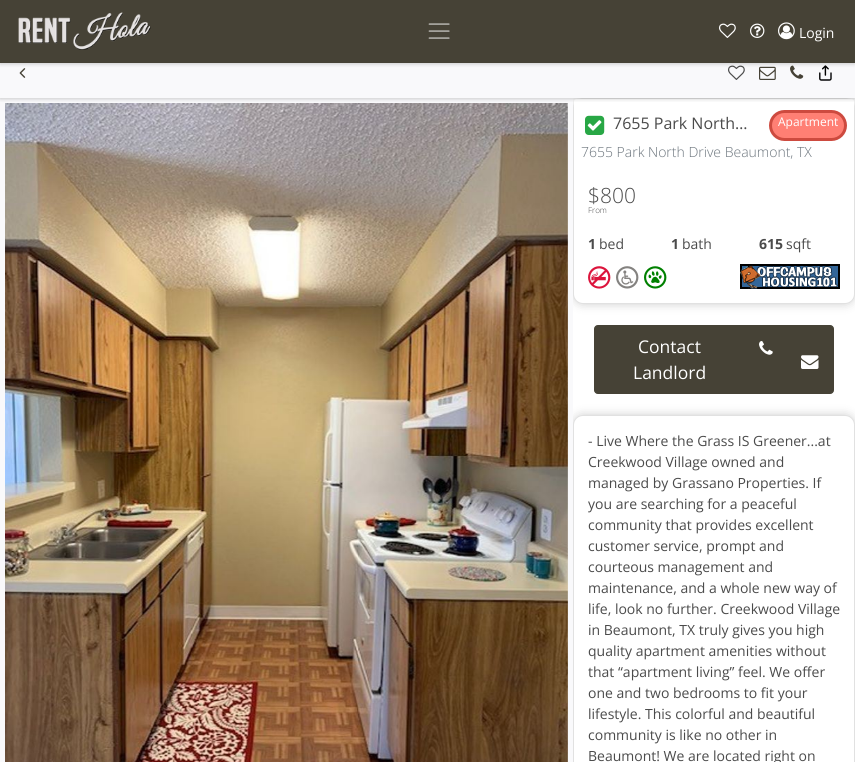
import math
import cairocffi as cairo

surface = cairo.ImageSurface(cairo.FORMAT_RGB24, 855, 762)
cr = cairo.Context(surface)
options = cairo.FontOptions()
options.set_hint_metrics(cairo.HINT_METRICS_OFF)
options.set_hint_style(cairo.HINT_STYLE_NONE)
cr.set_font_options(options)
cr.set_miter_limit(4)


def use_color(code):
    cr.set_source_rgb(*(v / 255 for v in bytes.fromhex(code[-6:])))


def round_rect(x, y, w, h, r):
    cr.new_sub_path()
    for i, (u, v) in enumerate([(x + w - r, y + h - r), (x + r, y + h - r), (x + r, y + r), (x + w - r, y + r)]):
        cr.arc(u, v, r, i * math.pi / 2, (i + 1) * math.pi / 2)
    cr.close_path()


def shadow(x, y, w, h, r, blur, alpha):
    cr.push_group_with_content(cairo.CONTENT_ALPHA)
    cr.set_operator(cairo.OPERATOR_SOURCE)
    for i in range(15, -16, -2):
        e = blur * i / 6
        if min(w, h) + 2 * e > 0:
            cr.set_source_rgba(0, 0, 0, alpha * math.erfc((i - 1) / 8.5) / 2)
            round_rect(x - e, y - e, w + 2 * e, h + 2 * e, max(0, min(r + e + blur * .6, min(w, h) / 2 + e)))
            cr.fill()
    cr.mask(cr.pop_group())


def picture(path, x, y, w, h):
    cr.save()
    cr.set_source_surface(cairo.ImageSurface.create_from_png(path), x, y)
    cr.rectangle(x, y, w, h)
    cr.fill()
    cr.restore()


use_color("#f9f9fb")
cr.paint()
use_color("#ffffff")
cr.rectangle(573, 98, 282, 327)
cr.fill()
picture("img11.png", 5, 103, 563, 659)
cr.save()
cr.rectangle(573, 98, 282, 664)
cr.clip()
use_color("#000000")
shadow(573, 98, 282, 206, 10, 5, 0.2)
cr.restore()
round_rect(573, 98, 282, 206, 10)
cr.fill()
round_rect(573.5, 98.5, 281, 205, 9.5)
cr.set_source_rgba(0, 0, 0, 0.12)
cr.set_line_width(1)
cr.stroke()
use_color("#ffffff")
cr.new_path()
cr.move_to(576.5, 99)
cr.line_to(851.5, 99)
cr.curve_to(853, 99, 854, 100, 854, 101.5)
cr.line_to(854, 169)
cr.line_to(574, 169)
cr.line_to(574, 101.5)
cr.curve_to(574, 100, 575, 99, 576.5, 99)
cr.close_path()
cr.fill()
cr.save()
cr.rectangle(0, 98, 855, 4)
cr.clip()
use_color("#000000")
shadow(0, 50, 855, 49, 0, 2, 0.2)
cr.restore()
picture("img6.png", 19, 68, 7, 10)
picture("img7.png", 728, 65, 17, 15)
picture("img8.png", 759, 66, 17, 14)
picture("img9.png", 790, 65, 14, 14)
picture("img10.png", 819, 65, 13, 16)
use_color("#000000")
shadow(0, 1, 855, 63, 0, 2, 0.2)
use_color("#464236")
cr.rectangle(0, 0, 855, 63)
cr.fill()
picture("img1.png", 18, 12, 133, 38)
picture("img2.png", 428, 23, 22, 16)
picture("img3.png", 719, 23, 17, 15)
picture("img4.png", 750, 23, 15, 15)
picture("img5.png", 778, 22, 17, 18)
cr.select_font_face("Open Sans")
cr.set_font_size(14)
use_color("#ffffff")
cr.move_to(799, 38)
cr.show_text("Login")
picture("img12.png", 585, 115, 20, 20)
cr.set_font_size(16)
use_color("#4b4b4b")
cr.move_to(613, 129)
cr.show_text("7655 Park North…")
use_color("#ff7f74")
round_rect(770.5, 111.5, 75, 28, 14)
cr.fill_preserve()
use_color("#cd4a3f")
cr.set_line_width(3)
cr.stroke()
cr.set_font_size(12)
use_color("#ffffff")
cr.move_to(778, 126)
cr.show_text("Apartment")
cr.select_font_face("Open Sans Light")
cr.set_font_size(14)
use_color("#6c757d")
cr.move_to(581, 157)
cr.show_text("7655 Park North Drive Beaumont, TX")
cr.set_font_size(21)
use_color("#4b4b4b")
cr.move_to(588, 203)
cr.show_text("$800")
cr.set_font_size(8)
cr.move_to(588, 213)
cr.show_text("From")
cr.select_font_face("Open Sans", cairo.FONT_SLANT_NORMAL, cairo.FONT_WEIGHT_BOLD)
cr.set_font_size(14)
cr.move_to(588, 249)
cr.show_text("1")
cr.select_font_face("Open Sans")
cr.move_to(599, 249)
cr.show_text("bed")
cr.select_font_face("Open Sans", cairo.FONT_SLANT_NORMAL, cairo.FONT_WEIGHT_BOLD)
cr.move_to(671, 249)
cr.show_text("1")
cr.select_font_face("Open Sans")
cr.move_to(682, 249)
cr.show_text("bath")
cr.select_font_face("Open Sans", cairo.FONT_SLANT_NORMAL, cairo.FONT_WEIGHT_BOLD)
cr.move_to(759, 249)
cr.show_text("615")
cr.select_font_face("Open Sans")
cr.move_to(786, 249)
cr.show_text("sqft")
picture("img13.png", 588, 266, 23, 23)
picture("img14.png", 616, 266, 23, 23)
picture("img15.png", 644, 266, 23, 23)
picture("img16.png", 740, 264, 100, 25)
use_color("#464236")
cr.new_path()
cr.move_to(598, 325.5)
cr.line_to(744.5, 325.5)
cr.line_to(744.5, 393.5)
cr.line_to(598, 393.5)
cr.curve_to(596, 393.5, 594.5, 392, 594.5, 390)
cr.line_to(594.5, 329)
cr.curve_to(594.5, 327, 596, 325.5, 598, 325.5)
cr.close_path()
cr.fill_preserve()
cr.set_line_width(1)
cr.stroke()
cr.set_font_size(17.5)
use_color("#ffffff")
cr.move_to(638, 353)
cr.show_text("Contact")
cr.move_to(633, 379)
cr.show_text("Landlord")
use_color("#464236")
cr.rectangle(745, 325, 41, 69)
cr.fill()
picture("img17.png", 759, 341, 14, 14)
cr.new_path()
cr.move_to(786.5, 325.5)
cr.line_to(830, 325.5)
cr.curve_to(832, 325.5, 833.5, 327, 833.5, 329)
cr.line_to(833.5, 390)
cr.curve_to(833.5, 392, 832, 393.5, 830, 393.5)
cr.line_to(786.5, 393.5)
cr.close_path()
cr.fill_preserve()
cr.stroke()
picture("img18.png", 801, 355, 18, 14)
cr.save()
cr.rectangle(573, 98, 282, 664)
cr.clip()
use_color("#000000")
shadow(573, 415, 282, 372, 10, 5, 0.2)
cr.restore()
use_color("#ffffff")
cr.new_path()
cr.move_to(583, 415)
cr.line_to(845, 415)
cr.curve_to(850.5, 415, 855, 419.5, 855, 425)
cr.line_to(855, 762)
cr.line_to(573, 762)
cr.line_to(573, 425)
cr.curve_to(573, 419.5, 577.5, 415, 583, 415)
cr.close_path()
cr.fill()
round_rect(573.5, 415.5, 281, 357, 9.5)
cr.set_source_rgba(0, 0, 0, 0.12)
cr.stroke()
cr.set_font_size(14)
use_color("#4b4b4b")
cr.move_to(588, 446)
cr.show_text("- Live Where the Grass IS Greener...at")
cr.move_to(588, 467)
cr.show_text("Creekwood Village owned and")
cr.move_to(588, 488)
cr.show_text("managed by Grassano Properties. If")
cr.move_to(588, 509)
cr.show_text("you are searching for a peaceful")
cr.move_to(588, 530)
cr.show_text("community that provides excellent")
cr.move_to(588, 551)
cr.show_text("customer service, prompt and")
cr.move_to(588, 572)
cr.show_text("courteous management and")
cr.move_to(588, 593)
cr.show_text("maintenance, and a whole new way of")
cr.move_to(588, 614)
cr.show_text("life, look no further. Creekwood Village")
cr.move_to(588, 635)
cr.show_text("in Beaumont, TX truly gives you high")
cr.move_to(588, 656)
cr.show_text("quality apartment amenities without")
cr.move_to(588, 677)
cr.show_text("that “apartment living” feel. We offer")
cr.move_to(588, 698)
cr.show_text("one and two bedrooms to fit your")
cr.move_to(588, 719)
cr.show_text("lifestyle. This colorful and beautiful")
cr.move_to(588, 740)
cr.show_text("community is like no other in")
cr.move_to(588, 761)
cr.show_text("Beaumont! We are located right on")
surface.write_to_png("result.png")
